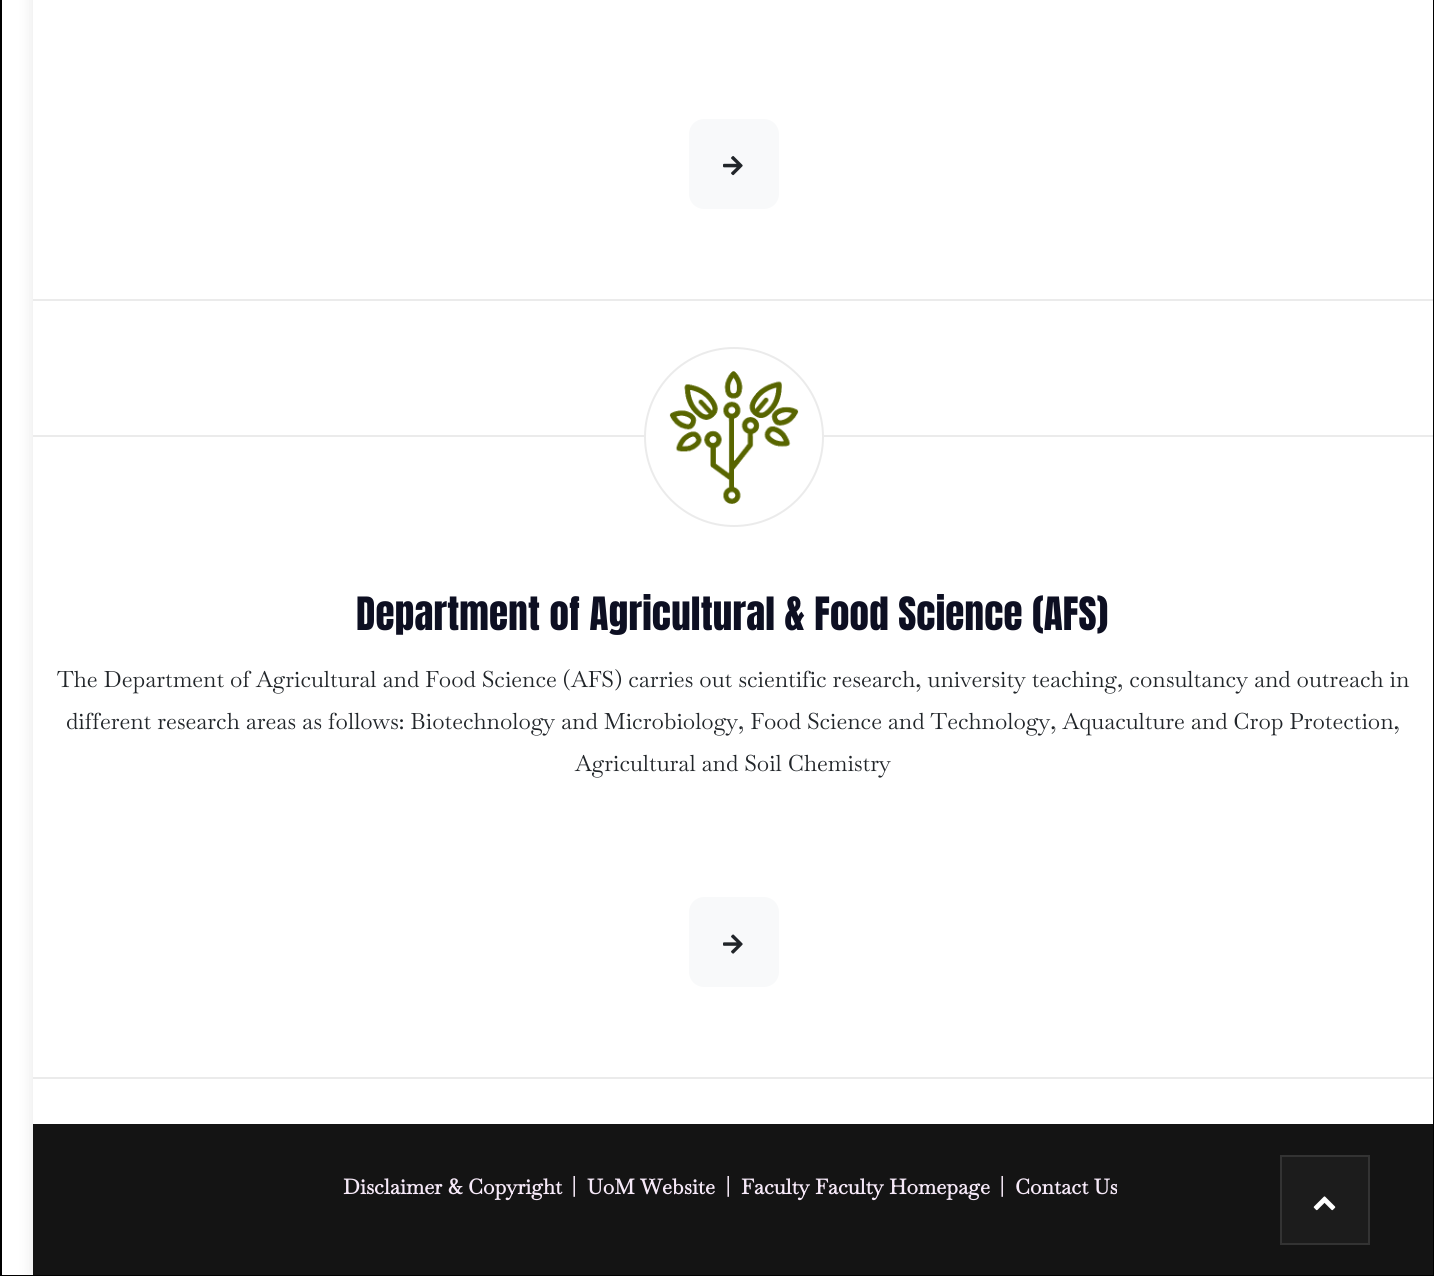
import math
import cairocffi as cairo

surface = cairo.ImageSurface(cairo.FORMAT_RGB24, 1434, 1276)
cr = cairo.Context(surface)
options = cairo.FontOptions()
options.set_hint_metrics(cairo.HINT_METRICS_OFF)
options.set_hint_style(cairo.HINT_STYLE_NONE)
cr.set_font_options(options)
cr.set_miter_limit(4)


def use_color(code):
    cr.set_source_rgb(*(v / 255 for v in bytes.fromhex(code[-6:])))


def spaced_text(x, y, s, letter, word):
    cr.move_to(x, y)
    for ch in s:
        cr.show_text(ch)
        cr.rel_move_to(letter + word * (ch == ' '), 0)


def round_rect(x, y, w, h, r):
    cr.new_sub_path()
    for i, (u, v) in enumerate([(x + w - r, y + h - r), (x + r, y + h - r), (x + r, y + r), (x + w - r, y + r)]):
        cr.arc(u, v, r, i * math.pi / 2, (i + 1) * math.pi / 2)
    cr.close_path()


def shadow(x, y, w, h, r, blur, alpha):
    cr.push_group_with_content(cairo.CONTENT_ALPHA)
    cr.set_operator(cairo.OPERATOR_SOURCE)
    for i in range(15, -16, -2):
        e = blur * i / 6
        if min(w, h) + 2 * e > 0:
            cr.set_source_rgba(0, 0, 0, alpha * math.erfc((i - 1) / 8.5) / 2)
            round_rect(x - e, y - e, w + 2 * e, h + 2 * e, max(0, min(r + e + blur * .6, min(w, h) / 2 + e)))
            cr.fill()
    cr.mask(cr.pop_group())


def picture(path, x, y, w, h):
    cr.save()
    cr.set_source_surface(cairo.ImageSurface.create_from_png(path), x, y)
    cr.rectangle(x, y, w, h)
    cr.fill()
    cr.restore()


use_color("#ffffff")
cr.paint()
cr.rectangle(1, -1, 1432, 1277)
use_color("#000000")
cr.stroke()
use_color("#000000")
shadow(33, -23, 1400, 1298, 0, 7.5, 0.1)
use_color("#ffffff")
cr.rectangle(33, 0, 1400, 1124)
cr.fill()
use_color("#ebebeb")
cr.rectangle(33, 299, 1400, 2)
cr.fill()
use_color("#f8f9fa")
round_rect(689, 119, 90, 90, 15)
cr.fill()
picture("img1.png", 723, 156, 20, 20)
use_color("#ebebeb")
cr.rectangle(33, 435, 1400, 2)
cr.fill()
cr.rectangle(33, 1077, 1400, 2)
cr.fill()
use_color("#ffffff")
cr.arc(734, 437, 89, 0, 2 * math.pi)
cr.fill_preserve()
use_color("#ebebeb")
cr.stroke()
picture("img2.png", 669, 371, 130, 133)
cr.select_font_face("Anton")
cr.set_font_size(39)
use_color("#0d0f22")
spaced_text(356, 630, "Department of Agricultural & Food Science (AFS)", 0.2, 0)
cr.select_font_face("Baskervville")
cr.set_font_size(22.5)
use_color("#212529")
cr.move_to(57, 687)
cr.show_text("The Department of Agricultural and Food Science (AFS) carries out scientific research, university teaching, consultancy and outreach in")
cr.move_to(66, 729)
cr.show_text("different research areas as follows: Biotechnology and Microbiology, Food Science and Technology, Aquaculture and Crop Protection,")
cr.move_to(575, 771)
cr.show_text("Agricultural and Soil Chemistry")
use_color("#f8f9fa")
round_rect(689, 897, 90, 90, 15)
cr.fill()
picture("img3.png", 723, 934, 20, 20)
use_color("#141414")
cr.rectangle(33, 1124, 1400, 151)
cr.fill()
cr.select_font_face("Baskervville", cairo.FONT_SLANT_NORMAL, cairo.FONT_WEIGHT_BOLD)
cr.set_font_size(20.9)
use_color("#f6e9f8")
cr.move_to(343, 1194)
cr.show_text("Disclaimer & Copyright")
cr.move_to(572, 1194)
cr.show_text("|")
cr.move_to(587, 1194)
cr.show_text("UoM Website")
cr.move_to(726, 1194)
cr.show_text("|")
cr.move_to(741, 1194)
cr.show_text("Faculty Faculty Homepage")
cr.move_to(1000, 1194)
cr.show_text("|")
cr.move_to(1015, 1194)
cr.show_text("Contact Us")
use_color("#1c1c1c")
cr.rectangle(1281, 1156, 88, 88)
cr.fill_preserve()
use_color("#333333")
cr.stroke()
picture("img4.png", 1313, 1196, 23, 15)
surface.write_to_png("result.png")
